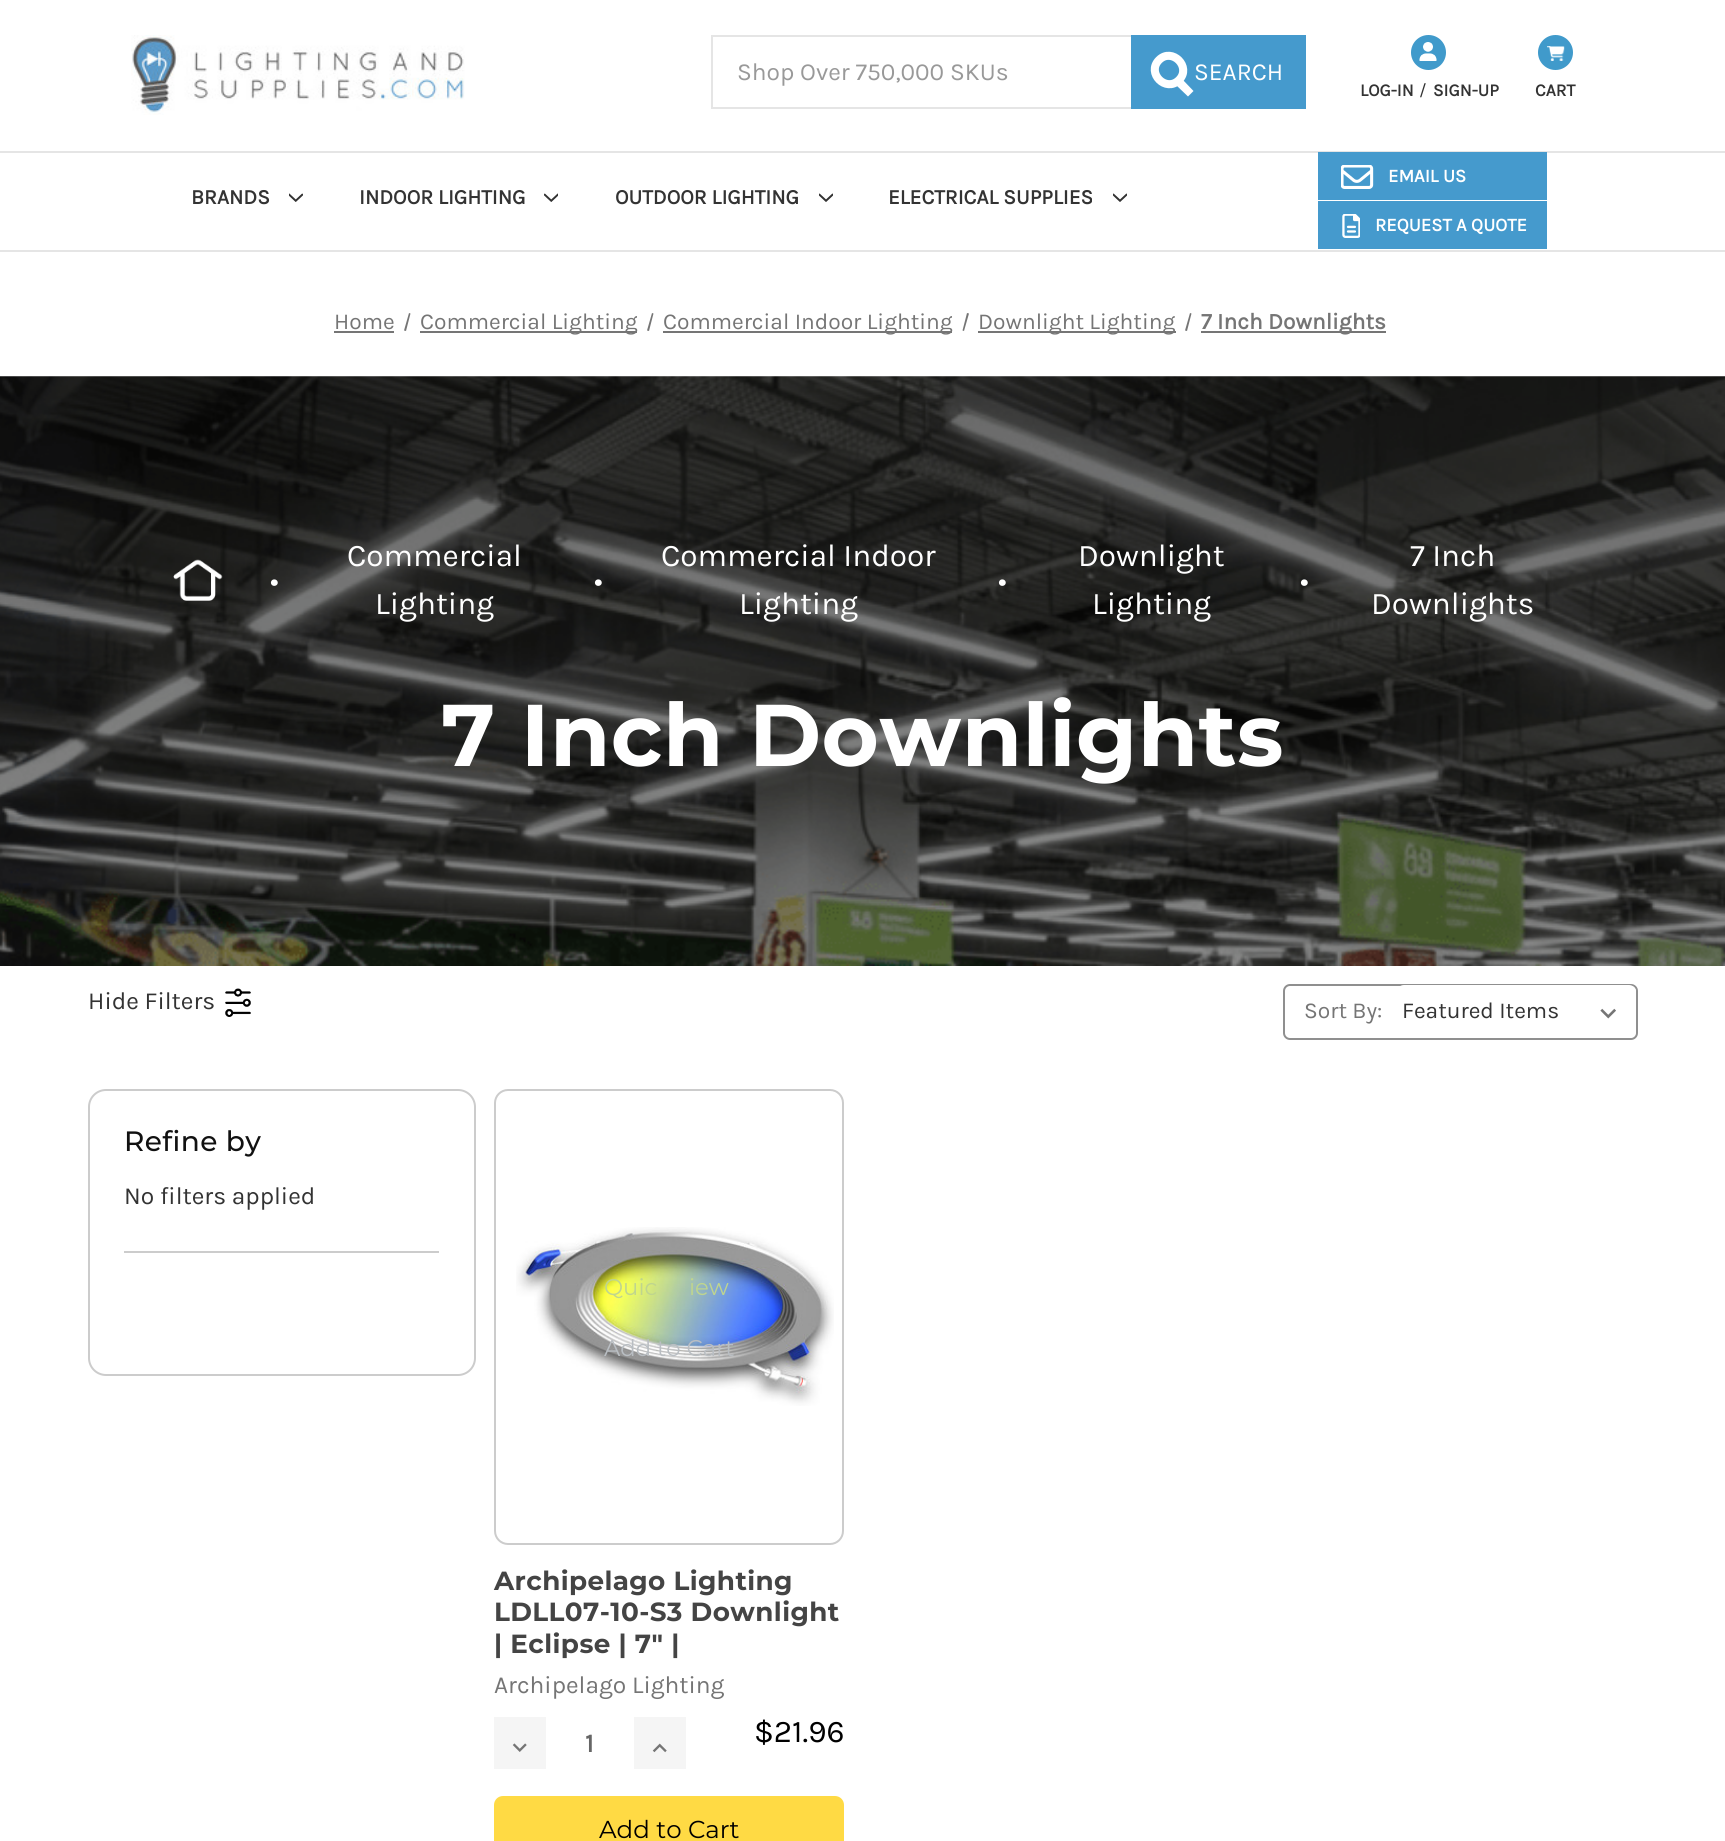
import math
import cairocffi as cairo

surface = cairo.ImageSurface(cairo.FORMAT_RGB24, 1725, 1841)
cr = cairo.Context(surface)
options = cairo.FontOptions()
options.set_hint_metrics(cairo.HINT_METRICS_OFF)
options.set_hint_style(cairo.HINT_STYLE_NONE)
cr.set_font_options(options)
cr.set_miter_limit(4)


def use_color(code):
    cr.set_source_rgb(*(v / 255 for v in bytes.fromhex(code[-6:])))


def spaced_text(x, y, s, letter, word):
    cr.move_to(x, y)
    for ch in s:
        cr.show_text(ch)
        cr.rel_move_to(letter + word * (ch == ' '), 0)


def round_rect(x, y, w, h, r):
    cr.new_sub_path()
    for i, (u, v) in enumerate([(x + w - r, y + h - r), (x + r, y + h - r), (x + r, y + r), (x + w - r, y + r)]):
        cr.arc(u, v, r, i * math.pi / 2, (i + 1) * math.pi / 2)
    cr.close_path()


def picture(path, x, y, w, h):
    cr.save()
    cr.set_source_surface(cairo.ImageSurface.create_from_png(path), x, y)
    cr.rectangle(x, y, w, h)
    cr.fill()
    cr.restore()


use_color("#ffffff")
cr.paint()
use_color("#e5e5e5")
cr.rectangle(0, 250, 1725, 2)
cr.fill()
cr.rectangle(0, 151, 1725, 2)
cr.fill()
picture("img1.png", 131, 35, 334, 80)
cr.rectangle(712, 36, 593, 72)
cr.stroke()
cr.select_font_face("Karla")
cr.set_font_size(24.5)
use_color("#999999")
cr.move_to(737, 80)
cr.show_text("Shop Over 750,000 SKUs")
use_color("#459acd")
cr.rectangle(1131, 35, 175, 74)
cr.fill()
cr.new_path()
cr.move_to(1159, 60)
cr.curve_to(1172, 47, 1192, 67, 1179, 80)
cr.curve_to(1166, 93, 1146, 73, 1159, 60)
cr.close_path()
use_color("#ffffff")
cr.set_line_width(8.1)
cr.stroke()
cr.set_fill_rule(cairo.FILL_RULE_EVEN_ODD)
cr.new_path()
cr.move_to(1176.5, 85.5)
cr.line_to(1182.5, 79.5)
cr.line_to(1193.5, 91)
cr.line_to(1188, 96.5)
cr.close_path()
cr.fill()
cr.move_to(1194, 80)
cr.show_text("SEARCH")
use_color("#409acb")
cr.new_path()
cr.arc(1428.5, 52.5, 17.5, 0, 2 * math.pi)
cr.fill()
picture("img2.png", 1419, 42, 18, 19)
cr.select_font_face("Karla", cairo.FONT_SLANT_NORMAL, cairo.FONT_WEIGHT_BOLD)
cr.set_font_size(17.5)
use_color("#333333")
cr.move_to(1360, 96)
cr.show_text("LOG-IN")
cr.select_font_face("Karla")
cr.move_to(1419, 96)
cr.show_text("/")
cr.select_font_face("Karla", cairo.FONT_SLANT_NORMAL, cairo.FONT_WEIGHT_BOLD)
cr.move_to(1433, 96)
cr.show_text("SIGN-UP")
use_color("#409acb")
cr.new_path()
cr.arc(1555.5, 52.5, 17.5, 0, 2 * math.pi)
cr.fill()
picture("img3.png", 1547, 46, 18, 15)
use_color("#333333")
cr.move_to(1535, 96)
cr.show_text("CART")
cr.set_font_size(21)
cr.move_to(191, 204)
cr.show_text("BRANDS")
picture("img4.png", 289, 193, 14, 9)
cr.move_to(359, 204)
cr.show_text("INDOOR LIGHTING")
picture("img5.png", 544, 193, 14, 9)
cr.move_to(615, 204)
cr.show_text("OUTDOOR LIGHTING")
picture("img6.png", 819, 193, 14, 9)
cr.move_to(888, 204)
cr.show_text("ELECTRICAL SUPPLIES")
picture("img6.png", 1113, 193, 14, 9)
use_color("#459acd")
cr.rectangle(1318, 152, 229, 48)
cr.fill()
picture("img7.png", 1341, 165, 33, 24)
cr.set_font_size(18.5)
use_color("#ffffff")
cr.move_to(1388, 182)
cr.show_text("EMAIL US")
use_color("#459acd")
cr.rectangle(1318, 201, 229, 48)
cr.fill()
picture("img8.png", 1342, 214, 18, 24)
use_color("#ffffff")
cr.move_to(1375, 231)
cr.show_text("REQUEST A QUOTE")
cr.select_font_face("Karla")
cr.set_font_size(22.75)
use_color("#757575")
cr.move_to(334, 329)
cr.show_text("Home")
cr.rectangle(334, 331, 60, 2)
cr.fill()
cr.set_fill_rule(cairo.FILL_RULE_WINDING)
cr.new_path()
cr.move_to(409, 313)
cr.line_to(410.5, 313.5)
cr.line_to(406, 331)
cr.line_to(404, 330.5)
cr.close_path()
cr.fill()
cr.rectangle(420, 331, 217, 2)
cr.fill()
cr.move_to(420, 329)
cr.show_text("Commercial Lighting")
cr.new_path()
cr.move_to(652, 313)
cr.line_to(653.5, 313.5)
cr.line_to(649, 331)
cr.line_to(647, 330.5)
cr.close_path()
cr.fill()
cr.rectangle(663, 331, 289, 2)
cr.fill()
cr.move_to(663, 329)
cr.show_text("Commercial Indoor Lighting")
cr.new_path()
cr.move_to(967, 313)
cr.line_to(969, 313.5)
cr.line_to(964, 331)
cr.line_to(962.5, 330.5)
cr.close_path()
cr.fill()
cr.rectangle(978, 331, 198, 2)
cr.fill()
cr.move_to(978, 329)
cr.show_text("Downlight Lighting")
cr.new_path()
cr.move_to(1190, 313)
cr.line_to(1191.5, 313.5)
cr.line_to(1187, 331)
cr.line_to(1185, 330.5)
cr.close_path()
cr.fill()
cr.rectangle(1201, 331, 185, 2)
cr.fill()
cr.select_font_face("Karla", cairo.FONT_SLANT_NORMAL, cairo.FONT_WEIGHT_BOLD)
cr.move_to(1201, 329)
cr.show_text("7 Inch Downlights")
picture("img9.png", 0, 376, 1725, 590)
picture("img10.png", 173, 559, 50, 42)
cr.select_font_face("Karla")
cr.set_font_size(31.5)
use_color("#ffffff")
cr.move_to(270, 591)
cr.show_text("•")
cr.move_to(347, 566)
cr.show_text("Commercial")
cr.move_to(375, 614)
cr.show_text("Lighting")
cr.move_to(594, 591)
cr.show_text("•")
cr.move_to(661, 566)
cr.show_text("Commercial Indoor")
cr.move_to(739, 614)
cr.show_text("Lighting")
cr.move_to(998, 591)
cr.show_text("•")
cr.move_to(1078, 566)
cr.show_text("Downlight")
cr.move_to(1092, 614)
cr.show_text("Lighting")
cr.move_to(1300, 591)
cr.show_text("•")
cr.move_to(1410, 566)
cr.show_text("7 Inch")
cr.move_to(1371, 614)
cr.show_text("Downlights")
cr.select_font_face("Montserrat", cairo.FONT_SLANT_NORMAL, cairo.FONT_WEIGHT_BOLD)
cr.set_font_size(87.5)
spaced_text(441, 766, "7 Inch Downlights", 0.4, 0)
cr.select_font_face("Karla")
cr.set_font_size(24.5)
use_color("#333333")
cr.move_to(88, 1009)
cr.show_text("Hide Filters")
picture("img11.png", 225, 988, 26, 29)
round_rect(1284, 985, 353, 54, 6)
use_color("#8f8f8f")
cr.set_line_width(2)
cr.stroke()
cr.set_font_size(22.75)
use_color("#757575")
cr.move_to(1304, 1018)
cr.show_text("Sort By:")
use_color("#ffffff")
round_rect(1397, 985, 239, 53, 7)
cr.fill()
picture("img12.png", 1600, 1008, 16, 11)
use_color("#333333")
cr.move_to(1402, 1018)
cr.show_text("Featured Items")
round_rect(89, 1090, 386, 285, 17)
use_color("#cccccc")
cr.stroke()
cr.rectangle(124, 1251, 315, 2)
cr.fill()
cr.select_font_face("Montserrat Medium")
cr.set_font_size(28)
use_color("#111111")
spaced_text(124, 1151, "Refine by", 0.4, 0)
cr.select_font_face("Karla")
cr.set_font_size(24.5)
use_color("#333333")
cr.move_to(124, 1204)
cr.show_text("No filters applied")
round_rect(495, 1090, 348, 454, 13)
use_color("#cccccc")
cr.stroke()
picture("img13.png", 516, 1227, 318, 179)
cr.select_font_face("Montserrat")
cr.set_font_size(22.75)
use_color("#bfd58e")
cr.move_to(604, 1295)
cr.show_text("Quic")
cr.move_to(689, 1295)
cr.show_text("iew")
use_color("#b9bec3")
cr.move_to(604, 1356)
cr.show_text("Add to Cart")
cr.select_font_face("Montserrat", cairo.FONT_SLANT_NORMAL, cairo.FONT_WEIGHT_BOLD)
cr.set_font_size(26.25)
use_color("#444444")
spaced_text(494, 1590, "Archipelago Lighting", 0.4, 0)
spaced_text(494, 1621, "LDLL07-10-S3 Downlight", 0.4, 0)
spaced_text(494, 1653, "| Eclipse | 7\" |", 0.4, 0)
cr.select_font_face("Karla")
cr.set_font_size(24.5)
use_color("#757575")
cr.move_to(494, 1693)
cr.show_text("Archipelago Lighting")
cr.set_font_size(31.5)
use_color("#000000")
cr.move_to(754, 1742)
cr.show_text("$21.96")
use_color("#f5f5f5")
cr.rectangle(494, 1717, 52, 52)
cr.fill()
picture("img14.png", 512, 1743, 15, 9)
cr.select_font_face("Karla", cairo.FONT_SLANT_NORMAL, cairo.FONT_WEIGHT_BOLD)
cr.set_font_size(26.25)
use_color("#666666")
cr.move_to(585, 1752)
cr.show_text("1")
use_color("#f5f5f5")
cr.rectangle(634, 1717, 52, 52)
cr.fill()
picture("img15.png", 652, 1743, 15, 10)
use_color("#ffda44")
round_rect(494, 1796, 350, 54, 9)
cr.fill()
cr.select_font_face("Montserrat")
cr.set_font_size(24.5)
use_color("#000000")
cr.move_to(599, 1838)
cr.show_text("Add to Cart")
surface.write_to_png("result.png")
